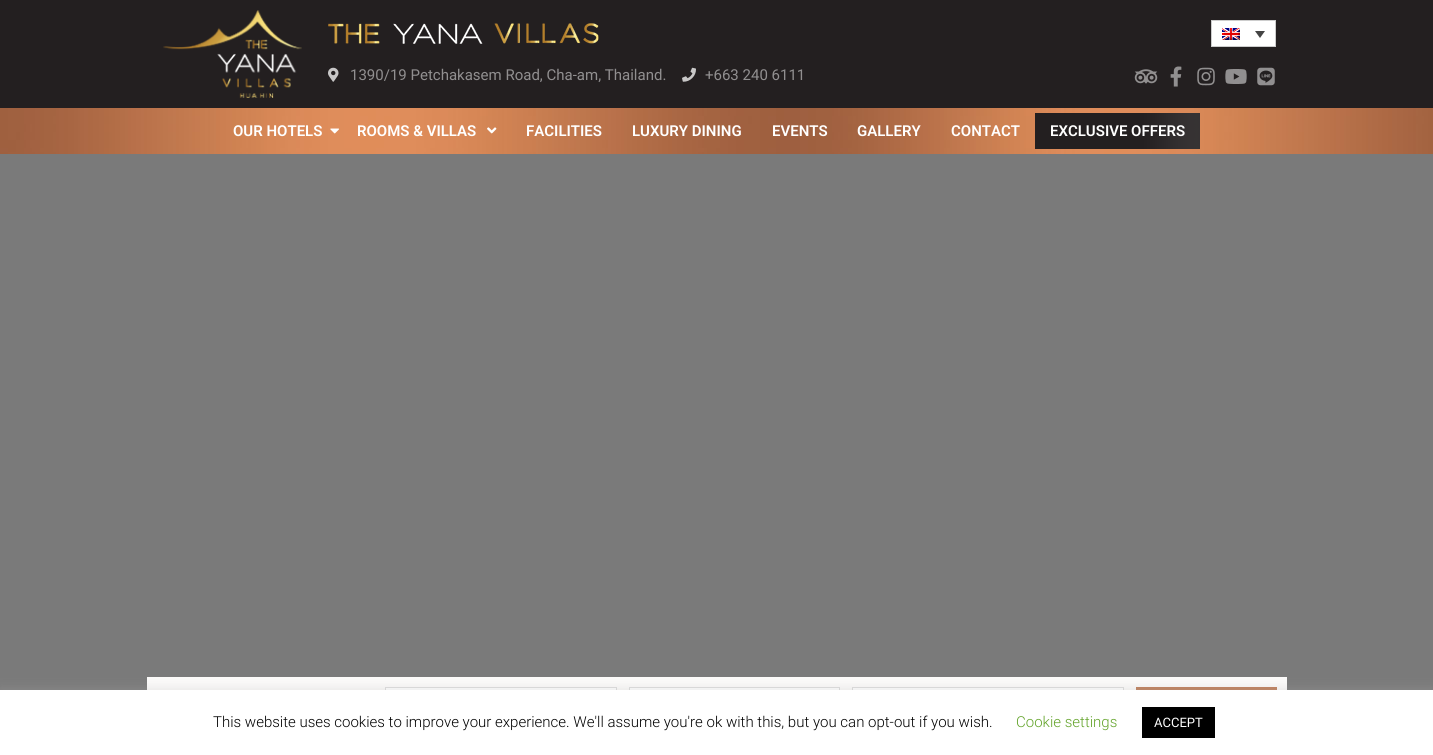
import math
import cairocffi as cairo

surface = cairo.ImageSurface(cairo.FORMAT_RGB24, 1433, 755)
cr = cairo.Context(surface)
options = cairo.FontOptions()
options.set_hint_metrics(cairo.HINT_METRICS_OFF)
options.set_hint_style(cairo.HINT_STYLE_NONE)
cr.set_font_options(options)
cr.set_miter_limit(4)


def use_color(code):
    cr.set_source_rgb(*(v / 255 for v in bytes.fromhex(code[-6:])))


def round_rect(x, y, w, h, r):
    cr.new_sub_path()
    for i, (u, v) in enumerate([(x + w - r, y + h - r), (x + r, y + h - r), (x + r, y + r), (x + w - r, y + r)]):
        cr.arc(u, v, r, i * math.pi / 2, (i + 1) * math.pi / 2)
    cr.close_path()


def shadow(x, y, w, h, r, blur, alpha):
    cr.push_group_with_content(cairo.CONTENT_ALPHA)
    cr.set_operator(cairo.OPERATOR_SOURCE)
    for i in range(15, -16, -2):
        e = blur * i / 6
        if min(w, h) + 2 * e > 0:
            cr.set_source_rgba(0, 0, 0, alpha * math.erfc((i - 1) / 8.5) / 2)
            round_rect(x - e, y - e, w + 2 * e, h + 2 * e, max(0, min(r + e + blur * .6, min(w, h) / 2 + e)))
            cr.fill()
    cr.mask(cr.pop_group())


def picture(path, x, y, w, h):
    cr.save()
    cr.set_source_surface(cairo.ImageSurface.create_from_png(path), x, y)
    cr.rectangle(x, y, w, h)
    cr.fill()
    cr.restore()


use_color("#231f20")
cr.paint()
picture("img1.png", 163, 10, 139, 88)
picture("img2.png", 328, 23, 271, 21)
picture("img3.png", 328, 67, 11, 15)
cr.select_font_face("Roboto")
cr.set_font_size(15)
use_color("#918f90")
cr.move_to(350, 80)
cr.show_text("1390/19 Petchakasem Road, Cha-am, Thailand.")
picture("img4.png", 682, 67, 14, 15)
cr.move_to(705, 80)
cr.show_text("+663 240 6111")
use_color("#ffffff")
cr.rectangle(1211.5, 20.5, 64, 26)
cr.fill_preserve()
use_color("#cdcdcd")
cr.set_line_width(1)
cr.stroke()
picture("img5.png", 1222, 28, 18, 12)
use_color("#444444")
cr.new_path()
cr.move_to(1255, 31)
cr.line_to(1265, 31)
cr.line_to(1260, 38)
cr.close_path()
cr.fill()
picture("img6.png", 1134, 69, 24, 15)
picture("img7.png", 1170, 66, 12, 21)
picture("img8.png", 1197, 67, 18, 19)
picture("img9.png", 1225, 69, 22, 15)
picture("img10.png", 1257, 67, 18, 19)
picture("img11.png", 0, 108, 1433, 46)
cr.select_font_face("Roboto SemiBold")
use_color("#ffffff")
cr.move_to(233, 136)
cr.show_text("OUR HOTELS")
picture("img12.png", 330, 128, 9, 6)
cr.move_to(357, 136)
cr.show_text("ROOMS & VILLAS")
picture("img13.png", 487, 127, 10, 7)
cr.move_to(526, 136)
cr.show_text("FACILITIES")
cr.move_to(632, 136)
cr.show_text("LUXURY DINING")
cr.move_to(772, 136)
cr.show_text("EVENTS")
cr.move_to(857, 136)
cr.show_text("GALLERY")
cr.move_to(951, 136)
cr.show_text("CONTACT")
picture("img14.png", 1035, 113, 165, 36)
cr.move_to(1050, 136)
cr.show_text("EXCLUSIVE OFFERS")
use_color("#7a7a7a")
cr.rectangle(0, 154, 1433, 536)
cr.fill()
use_color("#fbfaf9")
cr.rectangle(147, 677, 1140, 13)
cr.fill()
use_color("#ffffff")
cr.rectangle(386, 688, 230, 2)
cr.fill()
cr.rectangle(385.5, 687.5, 231, 45)
use_color("#dddddd")
cr.stroke()
use_color("#ffffff")
cr.rectangle(630, 688, 209, 2)
cr.fill()
cr.rectangle(629.5, 687.5, 210, 45)
use_color("#dddddd")
cr.stroke()
use_color("#ffffff")
cr.rectangle(853, 688, 270, 2)
cr.fill()
cr.rectangle(852.5, 687.5, 271, 48)
use_color("#dddddd")
cr.stroke()
use_color("#be7f5b")
cr.rectangle(1136, 687, 141, 3)
cr.fill()
use_color("#acabab")
shadow(0, 689, 1433, 65, 0, 5, 0.3)
use_color("#ffffff")
cr.rectangle(0, 690, 1433, 65)
cr.fill()
cr.select_font_face("Roboto Light")
use_color("#000000")
cr.move_to(213, 727)
cr.show_text("This website uses cookies to improve your experience. We'll assume you're ok with this, but you can opt-out if you wish.")
use_color("#62a329")
cr.move_to(1016, 727)
cr.show_text("Cookie settings")
use_color("#000000")
cr.rectangle(1142, 707, 73, 31)
cr.fill()
cr.select_font_face("Roboto")
cr.set_font_size(13)
use_color("#ffffff")
cr.move_to(1154, 727)
cr.show_text("ACCEPT")
surface.write_to_png("result.png")
